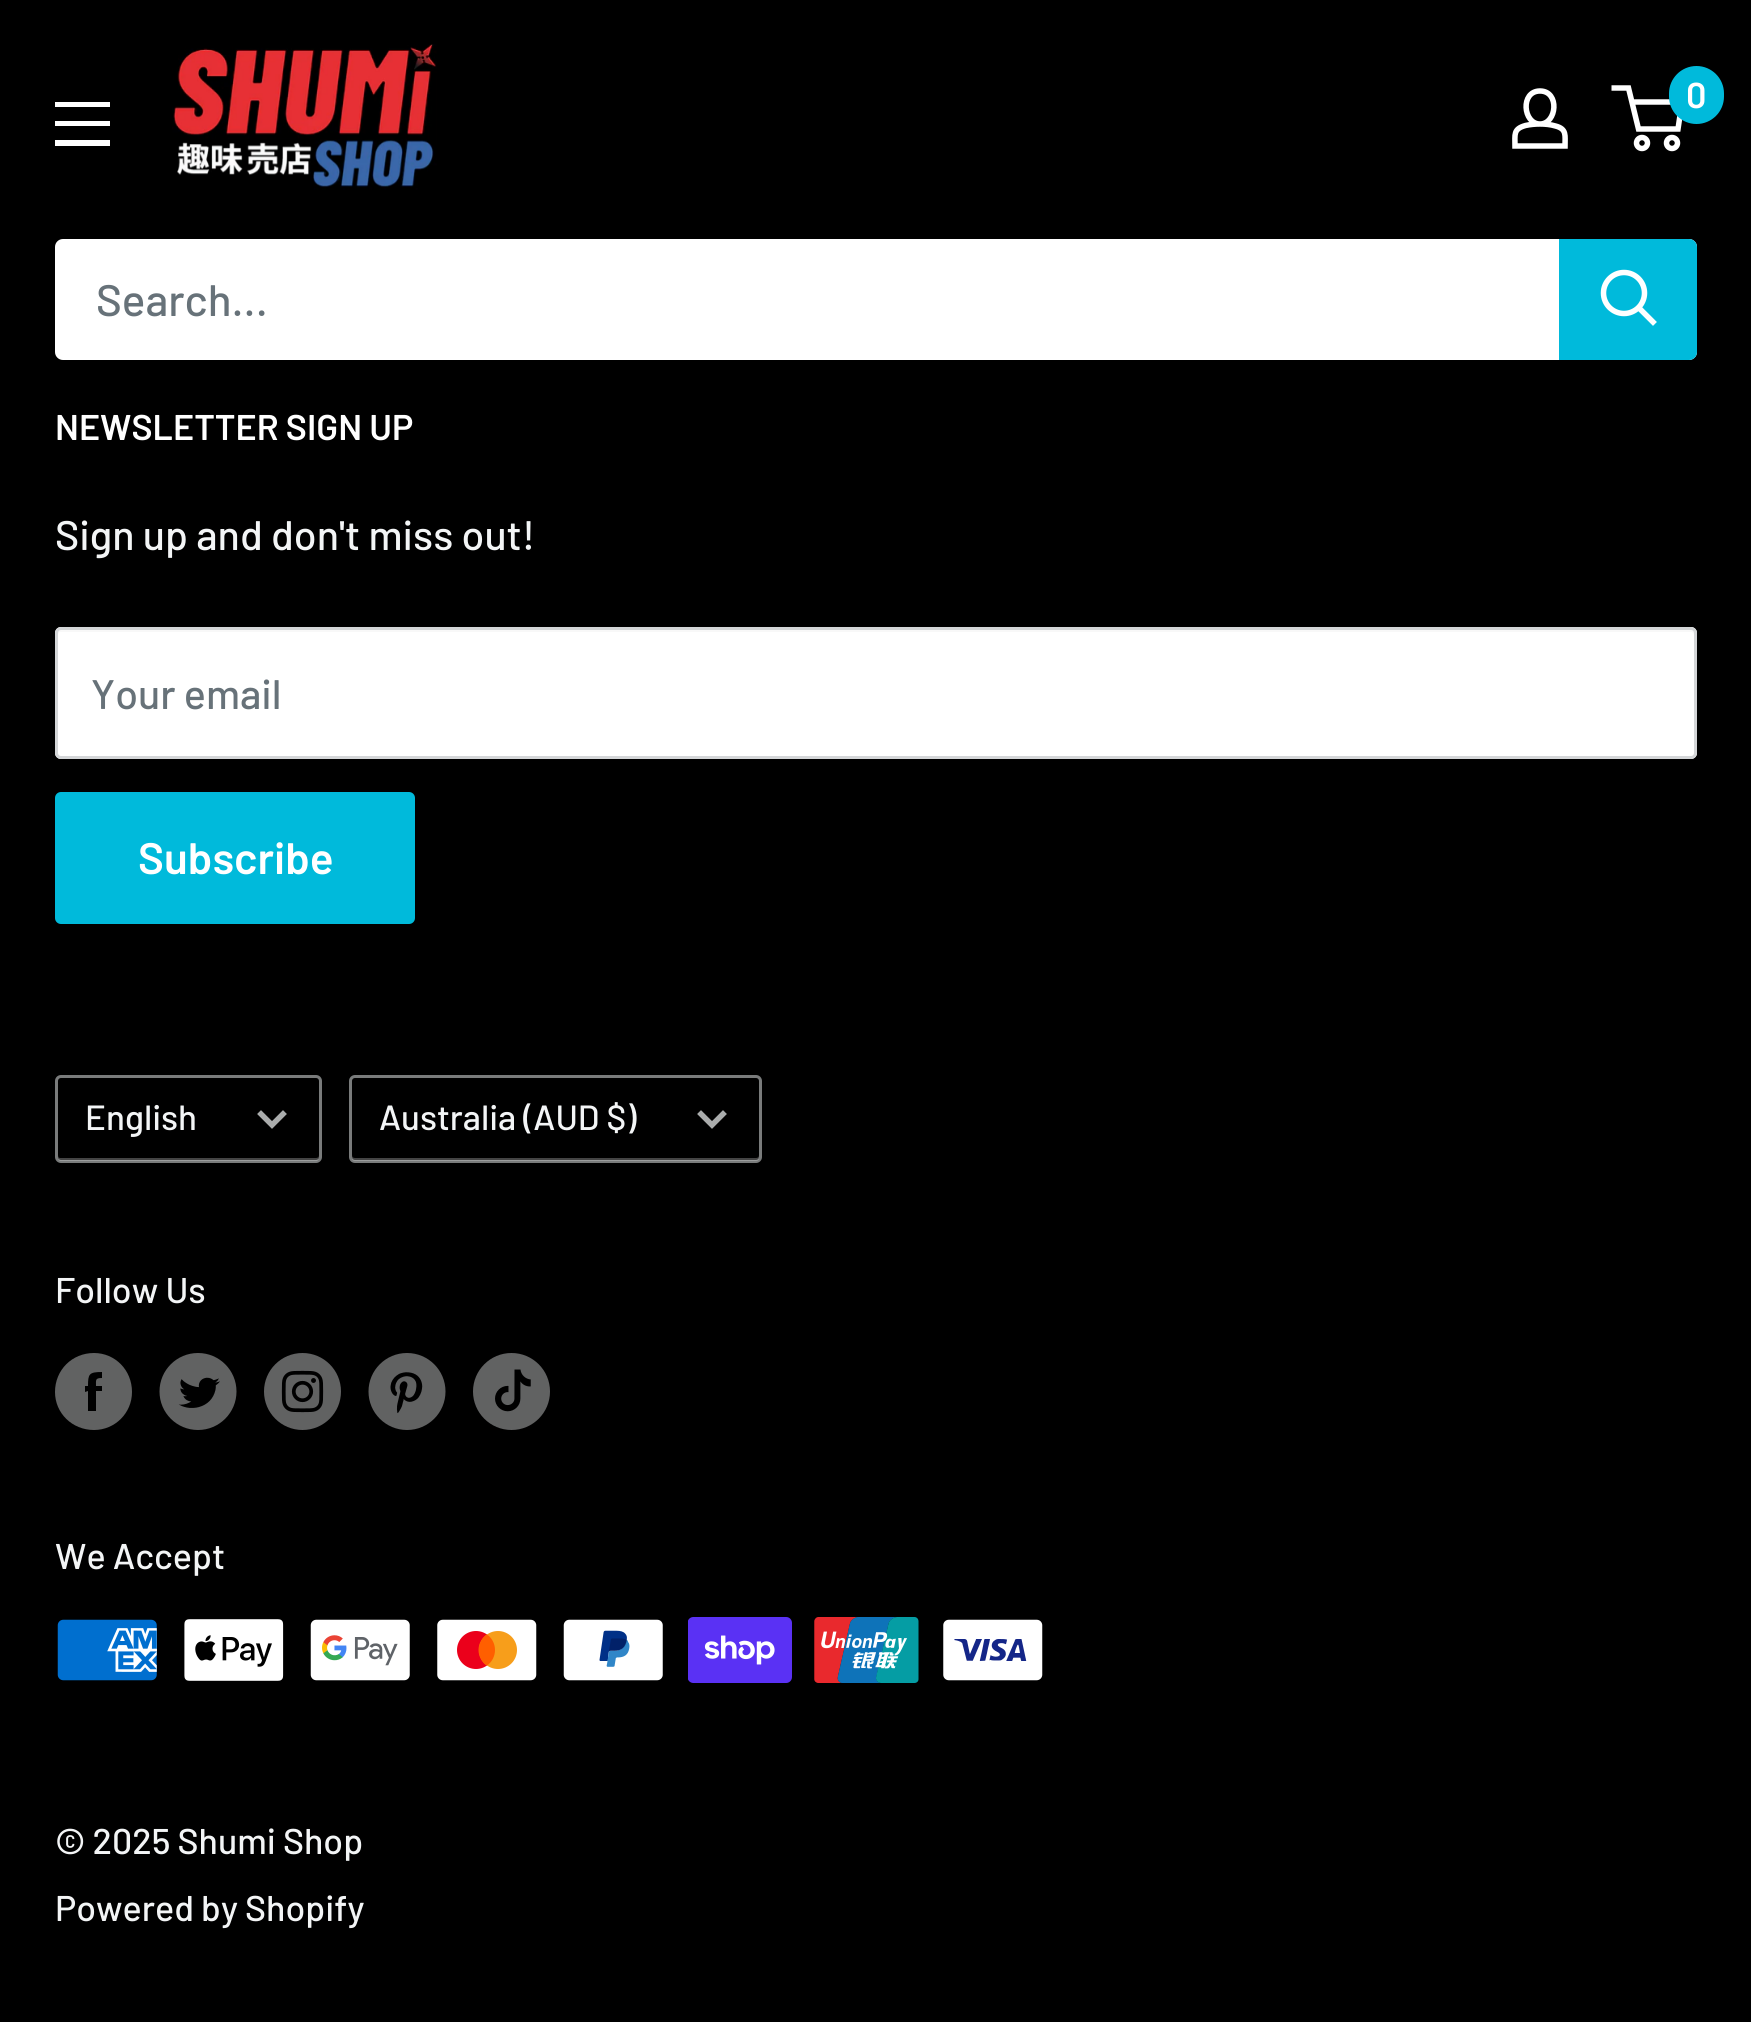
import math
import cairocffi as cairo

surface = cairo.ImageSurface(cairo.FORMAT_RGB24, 1751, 2022)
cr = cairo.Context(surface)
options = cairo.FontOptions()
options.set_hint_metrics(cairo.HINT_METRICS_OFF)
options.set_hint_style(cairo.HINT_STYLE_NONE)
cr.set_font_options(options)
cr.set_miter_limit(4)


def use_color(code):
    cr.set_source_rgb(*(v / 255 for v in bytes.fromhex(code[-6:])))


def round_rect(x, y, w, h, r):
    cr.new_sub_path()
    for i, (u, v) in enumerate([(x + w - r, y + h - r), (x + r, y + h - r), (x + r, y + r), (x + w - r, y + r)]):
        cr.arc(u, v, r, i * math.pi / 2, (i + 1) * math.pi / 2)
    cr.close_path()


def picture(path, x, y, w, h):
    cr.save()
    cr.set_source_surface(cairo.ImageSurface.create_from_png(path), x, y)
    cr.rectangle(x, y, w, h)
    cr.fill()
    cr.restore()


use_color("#000000")
cr.paint()
picture("img1.png", 172, 44, 265, 146)
cr.new_path()
cr.move_to(1540, 124)
cr.curve_to(1545, 124, 1550.5, 124.5, 1555.5, 126)
cr.curve_to(1567, 129, 1565, 135.5, 1565, 146)
cr.line_to(1515, 146)
cr.curve_to(1515, 134.5, 1513, 129, 1525.5, 125.5)
cr.curve_to(1530, 124.5, 1535, 124, 1540, 124)
cr.close_path()
cr.move_to(1540, 124)
cr.curve_to(1523, 124, 1520, 91, 1540, 91)
cr.curve_to(1560, 91, 1557, 124, 1540, 124)
cr.close_path()
use_color("#ffffff")
cr.set_line_width(5.5)
cr.stroke()
cr.arc(1642, 143, 5.5, 0, 2 * math.pi)
cr.stroke()
cr.arc(1672, 143, 5.5, 0, 2 * math.pi)
cr.stroke()
cr.new_path()
cr.move_to(1631.5, 102)
cr.line_to(1682, 102)
cr.line_to(1678, 129)
cr.line_to(1638.5, 129)
cr.line_to(1628.5, 88)
cr.line_to(1611.5, 88)
cr.stroke()
use_color("#00badb")
round_rect(1669, 66, 55, 58, 27.5)
cr.fill()
cr.select_font_face("Barlow SemiBold")
cr.set_font_size(36)
use_color("#ffffff")
cr.move_to(1686, 108)
cr.show_text("0")
cr.set_fill_rule(cairo.FILL_RULE_EVEN_ODD)
cr.new_path()
cr.move_to(55, 140)
cr.line_to(110, 140)
cr.line_to(110, 146)
cr.line_to(55, 146)
cr.close_path()
cr.move_to(55, 102)
cr.line_to(110, 102)
cr.line_to(110, 107)
cr.line_to(55, 107)
cr.close_path()
cr.move_to(55, 121)
cr.line_to(110, 121)
cr.line_to(110, 126)
cr.line_to(55, 126)
cr.close_path()
cr.fill()
round_rect(55, 239, 1642, 121, 8)
cr.fill()
cr.select_font_face("Barlow Medium")
cr.set_font_size(44)
use_color("#677279")
cr.move_to(96, 316)
cr.show_text("Search...")
use_color("#00badb")
cr.new_path()
cr.move_to(1559, 239)
cr.line_to(1689, 239)
cr.curve_to(1693.5, 239, 1697, 242.5, 1697, 247)
cr.line_to(1697, 352)
cr.curve_to(1697, 356.5, 1693.5, 360, 1689, 360)
cr.line_to(1559, 360)
cr.close_path()
cr.fill()
cr.new_path()
cr.move_to(1653, 322)
cr.line_to(1639, 308)
use_color("#ffffff")
cr.set_line_cap(cairo.LINE_CAP_SQUARE)
cr.stroke()
cr.arc(1624, 293, 20.5, 0, 2 * math.pi)
cr.set_line_cap(cairo.LINE_CAP_BUTT)
cr.stroke()
cr.select_font_face("Barlow SemiBold")
cr.set_font_size(35.75)
cr.move_to(55, 440)
cr.show_text("NEWSLETTER SIGN UP")
cr.select_font_face("Barlow Medium")
cr.set_font_size(41.25)
use_color("#f3f5f6")
cr.move_to(55, 550)
cr.show_text("Sign up and don't miss out!")
use_color("#ffffff")
round_rect(55, 627, 1642, 132, 6)
cr.fill()
use_color("#f8f8f8")
cr.set_fill_rule(cairo.FILL_RULE_WINDING)
cr.new_path()
cr.move_to(60, 632)
cr.line_to(1691, 632)
cr.curve_to(1693, 632, 1694, 634, 1694, 635)
cr.line_to(1694, 633)
cr.curve_to(1694, 631, 1693, 630, 1691, 630)
cr.line_to(61, 630)
cr.curve_to(59, 630, 58, 631, 58, 633)
cr.line_to(58, 635)
cr.curve_to(58, 634, 59, 632, 60, 632)
cr.close_path()
cr.fill()
round_rect(56.5, 628.5, 1639, 129, 4.5)
use_color("#d4d6d8")
cr.set_line_width(3)
cr.stroke()
use_color("#677279")
cr.move_to(91, 709)
cr.show_text("Your email")
use_color("#00badb")
round_rect(55, 792, 360, 132, 6)
cr.fill()
cr.select_font_face("Barlow SemiBold")
cr.set_font_size(44)
use_color("#ffffff")
cr.move_to(138, 874)
cr.show_text("Subscribe")
use_color("#444444")
cr.new_path()
cr.move_to(58, 1155)
cr.curve_to(58, 1157, 58, 1160, 60, 1161)
cr.line_to(317, 1161)
cr.curve_to(319, 1160, 319, 1157, 319, 1155)
cr.curve_to(319, 1157, 318, 1158, 316, 1158)
cr.line_to(60, 1158)
cr.curve_to(59, 1158, 58, 1157, 58, 1155)
cr.close_path()
cr.fill()
round_rect(56.5, 1076.5, 264, 85, 4.5)
cr.set_source_rgba(0.953, 0.961, 0.965, 0.5)
cr.stroke()
cr.select_font_face("Barlow Medium")
cr.set_font_size(35)
use_color("#f3f5f6")
cr.move_to(85, 1130)
cr.show_text("English")
cr.new_path()
cr.move_to(283, 1114)
cr.line_to(272, 1125)
cr.line_to(261, 1114)
use_color("#aaacac")
cr.set_line_width(5.5)
cr.set_line_cap(cairo.LINE_CAP_SQUARE)
cr.stroke()
use_color("#444444")
cr.new_path()
cr.move_to(352, 1155)
cr.line_to(352, 1158)
cr.curve_to(352, 1160, 353, 1161, 355, 1161)
cr.line_to(756, 1161)
cr.curve_to(758, 1161, 759, 1160, 759, 1158)
cr.line_to(759, 1155)
cr.curve_to(759, 1157, 758, 1158, 756, 1158)
cr.line_to(355, 1158)
cr.curve_to(353, 1158, 352, 1157, 352, 1155)
cr.close_path()
cr.fill()
round_rect(350.5, 1076.5, 410, 85, 4.5)
cr.set_source_rgba(0.953, 0.961, 0.965, 0.5)
cr.set_line_width(3)
cr.set_line_cap(cairo.LINE_CAP_BUTT)
cr.stroke()
use_color("#f3f5f6")
cr.move_to(379, 1130)
cr.show_text("Australia (AUD $)")
cr.new_path()
cr.move_to(723, 1114)
cr.line_to(712, 1125)
cr.line_to(701, 1114)
use_color("#aaacac")
cr.set_line_width(5.5)
cr.set_line_cap(cairo.LINE_CAP_SQUARE)
cr.stroke()
cr.set_font_size(35.75)
use_color("#f3f5f6")
cr.move_to(55, 1303)
cr.show_text("Follow Us")
use_color("#616262")
cr.set_fill_rule(cairo.FILL_RULE_EVEN_ODD)
cr.new_path()
cr.move_to(94, 1430)
cr.curve_to(72, 1430, 55, 1413, 55, 1392)
cr.curve_to(55, 1370, 72, 1353, 94, 1353)
cr.curve_to(115, 1353, 132, 1370, 132, 1392)
cr.curve_to(132, 1413, 115, 1430, 94, 1430)
cr.close_path()
cr.move_to(102, 1386)
cr.line_to(96, 1386)
cr.curve_to(96, 1380, 95, 1378, 102, 1378)
cr.line_to(102, 1372)
cr.curve_to(89, 1372, 88, 1374, 88, 1386)
cr.line_to(85, 1386)
cr.line_to(85, 1392)
cr.line_to(88, 1391)
cr.line_to(88, 1411)
cr.line_to(96, 1411)
cr.line_to(96, 1391)
cr.line_to(102, 1391)
cr.close_path()
cr.fill()
picture("img2.png", 159, 1353, 78, 77)
picture("img3.png", 264, 1353, 77, 77)
picture("img4.png", 368, 1353, 78, 77)
picture("img5.png", 473, 1353, 77, 77)
use_color("#f3f5f6")
cr.move_to(55, 1569)
cr.show_text("We Accept")
picture("img6.png", 57, 1619, 100, 62)
picture("img7.png", 184, 1619, 100, 62)
picture("img8.png", 310, 1619, 100, 62)
picture("img9.png", 437, 1619, 100, 62)
picture("img10.png", 563, 1619, 100, 62)
picture("img11.png", 688, 1617, 104, 66)
picture("img12.png", 814, 1617, 105, 66)
picture("img13.png", 943, 1619, 100, 62)
cr.move_to(55, 1854)
cr.show_text("© 2025 Shumi Shop")
cr.move_to(55, 1921)
cr.show_text("Powered by Shopify")
surface.write_to_png("result.png")
